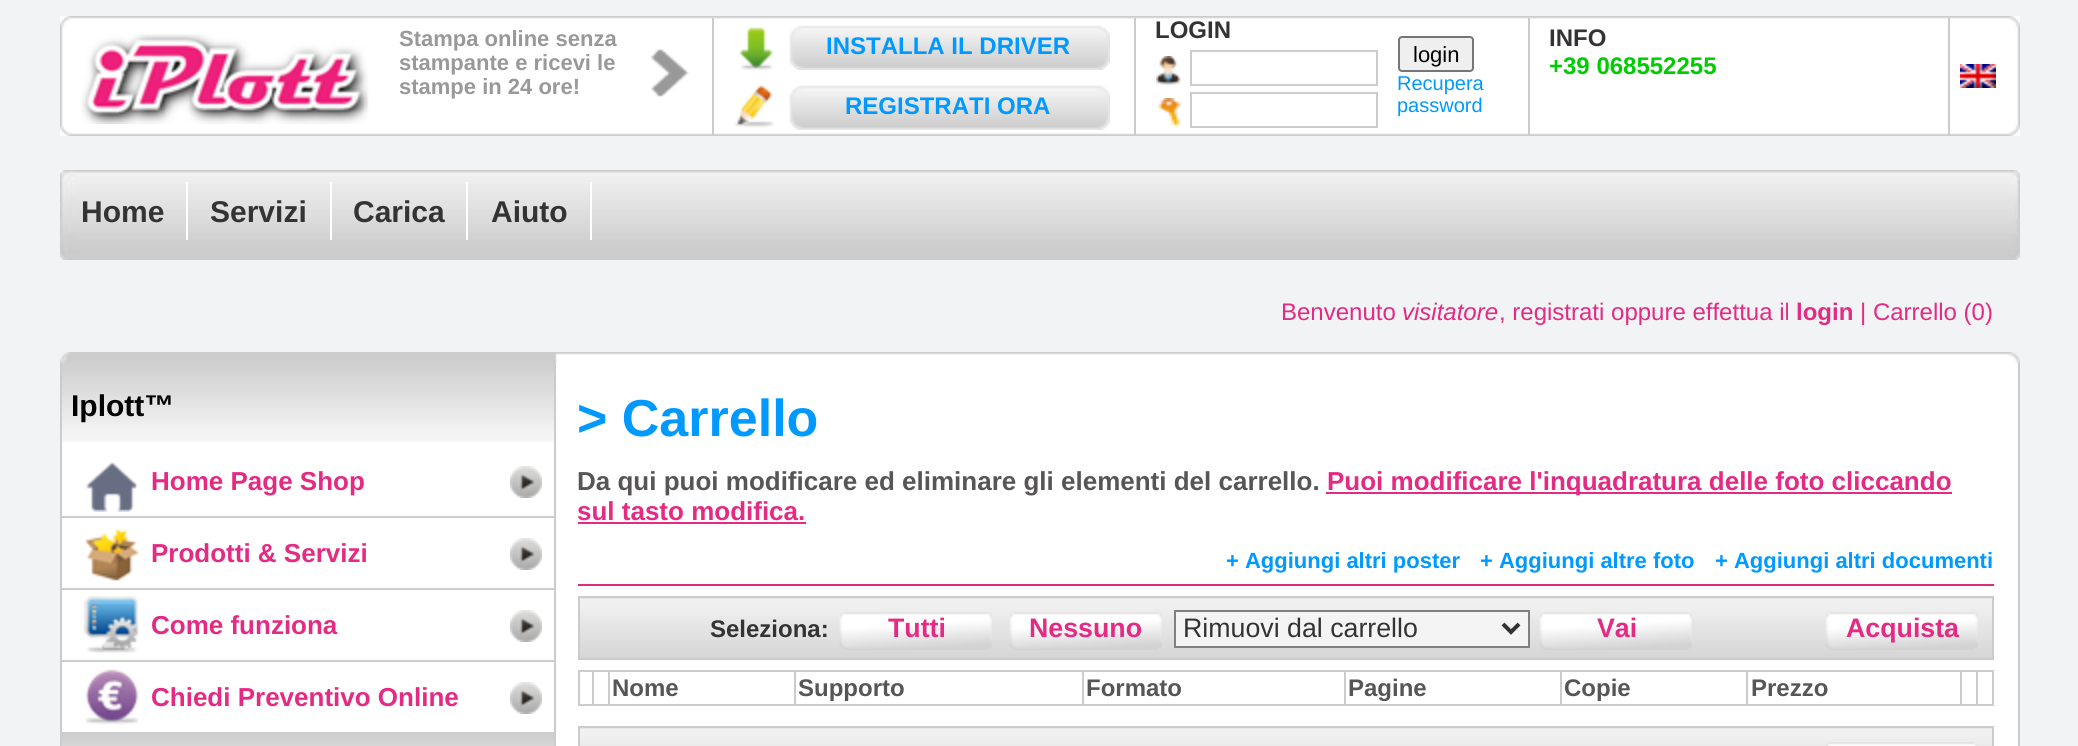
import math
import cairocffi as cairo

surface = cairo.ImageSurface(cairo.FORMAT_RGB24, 2078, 746)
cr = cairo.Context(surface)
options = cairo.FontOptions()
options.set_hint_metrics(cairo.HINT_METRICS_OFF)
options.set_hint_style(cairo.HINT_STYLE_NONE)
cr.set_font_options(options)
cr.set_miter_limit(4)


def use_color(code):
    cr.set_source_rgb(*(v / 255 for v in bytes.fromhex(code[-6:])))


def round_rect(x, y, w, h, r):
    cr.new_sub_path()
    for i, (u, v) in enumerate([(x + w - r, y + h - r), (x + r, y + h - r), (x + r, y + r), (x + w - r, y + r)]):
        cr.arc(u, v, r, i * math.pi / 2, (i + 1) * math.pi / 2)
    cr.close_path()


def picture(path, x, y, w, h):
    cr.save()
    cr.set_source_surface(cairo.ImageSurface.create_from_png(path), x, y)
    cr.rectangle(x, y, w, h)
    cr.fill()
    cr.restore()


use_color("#f1f3f5")
cr.paint()
use_color("#ffffff")
cr.rectangle(60, 16, 1960, 120)
cr.fill()
picture("img1.png", 60, 16, 1960, 120)
picture("img2.png", 82, 34, 287, 90)
picture("img3.png", 650, 49, 39, 48)
use_color("#cccccc")
cr.rectangle(712, 18, 2, 118)
cr.fill()
cr.select_font_face("Liberation Sans", cairo.FONT_SLANT_NORMAL, cairo.FONT_WEIGHT_BOLD)
cr.set_font_size(22)
use_color("#999999")
cr.move_to(399, 46)
cr.show_text("Stampa online senza")
cr.move_to(399, 70)
cr.show_text("stampante e ricevi le")
cr.move_to(399, 94)
cr.show_text("stampe in 24 ore!")
use_color("#cccccc")
cr.rectangle(1134, 18, 2, 118)
cr.fill()
picture("img4.png", 739, 25, 371, 45)
cr.set_font_size(24)
use_color("#0099ff")
cr.move_to(826, 54)
cr.show_text("INSTALLA IL DRIVER")
picture("img5.png", 734, 85, 376, 45)
cr.move_to(845, 114)
cr.show_text("REGISTRATI ORA")
use_color("#cccccc")
cr.rectangle(1528, 18, 2, 118)
cr.fill()
use_color("#333333")
cr.move_to(1155, 38)
cr.show_text("LOGIN")
picture("img6.png", 1156, 56, 25, 30)
cr.rectangle(1191, 51, 186, 34)
use_color("#cccccc")
cr.stroke()
picture("img7.png", 1157, 98, 25, 30)
cr.rectangle(1191, 93, 186, 34)
cr.stroke()
use_color("#efefef")
round_rect(1399, 37, 74, 34, 3)
cr.fill_preserve()
use_color("#767676")
cr.stroke()
cr.select_font_face("Liberation Sans")
cr.set_font_size(22)
use_color("#000000")
cr.move_to(1413, 62)
cr.show_text("login")
cr.set_font_size(20)
use_color("#0099ff")
cr.move_to(1397, 90)
cr.show_text("Recupera")
cr.move_to(1397, 112)
cr.show_text("password")
use_color("#cccccc")
cr.rectangle(1948, 18, 2, 118)
cr.fill()
cr.select_font_face("Liberation Sans", cairo.FONT_SLANT_NORMAL, cairo.FONT_WEIGHT_BOLD)
cr.set_font_size(24)
use_color("#333333")
cr.move_to(1549, 46)
cr.show_text("INFO")
use_color("#00cc00")
cr.move_to(1549, 74)
cr.show_text("+39 068552255")
picture("img8.png", 1960, 64, 36, 24)
picture("img9.png", 60, 170, 1960, 90)
use_color("#ffffff")
cr.rectangle(186, 182, 2, 58)
cr.fill()
cr.set_font_size(30)
use_color("#333333")
cr.move_to(81, 222)
cr.show_text("Home")
use_color("#ffffff")
cr.rectangle(330, 182, 2, 58)
cr.fill()
use_color("#333333")
cr.move_to(210, 222)
cr.show_text("Servizi")
use_color("#ffffff")
cr.rectangle(466, 182, 2, 58)
cr.fill()
use_color("#333333")
cr.move_to(353, 222)
cr.show_text("Carica")
use_color("#ffffff")
cr.rectangle(590, 182, 2, 58)
cr.fill()
use_color("#333333")
cr.move_to(491, 222)
cr.show_text("Aiuto")
cr.select_font_face("Liberation Sans")
cr.set_font_size(24)
use_color("#e42a82")
cr.move_to(1281, 320)
cr.show_text("Benvenuto")
cr.select_font_face("Liberation Sans", cairo.FONT_SLANT_ITALIC)
cr.move_to(1402, 320)
cr.show_text("visitatore")
cr.select_font_face("Liberation Sans")
cr.move_to(1499, 320)
cr.show_text(", registrati oppure effettua il")
cr.select_font_face("Liberation Sans", cairo.FONT_SLANT_NORMAL, cairo.FONT_WEIGHT_BOLD)
cr.move_to(1796, 320)
cr.show_text("login")
cr.select_font_face("Liberation Sans")
cr.move_to(1860, 320)
cr.show_text("| Carrello (0)")
picture("img10.png", 60, 352, 1960, 12)
use_color("#ffffff")
cr.rectangle(62, 364, 1956, 382)
cr.fill()
use_color("#cccccc")
cr.rectangle(2018, 364, 2, 382)
cr.fill()
cr.rectangle(60, 364, 2, 382)
cr.fill()
cr.rectangle(554, 364, 2, 382)
cr.fill()
picture("img11.png", 62, 364, 492, 78)
cr.select_font_face("Liberation Sans", cairo.FONT_SLANT_NORMAL, cairo.FONT_WEIGHT_BOLD)
cr.set_font_size(30)
use_color("#000000")
cr.move_to(71, 416)
cr.show_text("Iplott™")
picture("img12.png", 510, 466, 32, 32)
picture("img13.png", 85, 461, 52, 51)
use_color("#cccccc")
cr.rectangle(62, 516, 492, 2)
cr.fill()
cr.set_font_size(26)
use_color("#e42a82")
cr.move_to(151, 490)
cr.show_text("Home Page Shop")
picture("img12.png", 510, 538, 32, 32)
picture("img14.png", 85, 529, 54, 52)
use_color("#cccccc")
cr.rectangle(62, 588, 492, 2)
cr.fill()
use_color("#e42a82")
cr.move_to(151, 562)
cr.show_text("Prodotti & Servizi")
picture("img12.png", 510, 610, 32, 32)
picture("img15.png", 83, 596, 56, 57)
use_color("#cccccc")
cr.rectangle(62, 660, 492, 2)
cr.fill()
use_color("#e42a82")
cr.move_to(151, 634)
cr.show_text("Come funziona")
picture("img12.png", 510, 682, 32, 32)
picture("img16.png", 85, 669, 54, 56)
use_color("#cccccc")
cr.rectangle(62, 732, 492, 2)
cr.fill()
use_color("#e42a82")
cr.move_to(151, 706)
cr.show_text("Chiedi Preventivo Online")
picture("img17.png", 62, 734, 492, 12)
cr.set_font_size(52)
use_color("#0099ff")
cr.move_to(577, 436)
cr.show_text("> Carrello")
cr.set_font_size(26)
use_color("#575555")
cr.move_to(577, 490)
cr.show_text("Da qui puoi modificare ed eliminare gli elementi del carrello.")
use_color("#e42a82")
cr.rectangle(1326, 492, 626, 2)
cr.fill()
cr.move_to(1327, 490)
cr.show_text("Puoi modificare l'inquadratura delle foto cliccando")
cr.move_to(577, 520)
cr.show_text("sul tasto modifica.")
cr.rectangle(578, 522, 228, 2)
cr.fill()
cr.set_font_size(22)
use_color("#0099ff")
cr.move_to(1226, 568)
cr.show_text("+ Aggiungi altri poster")
cr.move_to(1480, 568)
cr.show_text("+ Aggiungi altre foto")
cr.move_to(1715, 568)
cr.show_text("+ Aggiungi altri documenti")
use_color("#e42981")
cr.rectangle(578, 584, 1416, 2)
cr.fill()
picture("img18.png", 580, 598, 1412, 60)
cr.rectangle(579, 597, 1414, 62)
use_color("#cccccc")
cr.stroke()
cr.set_font_size(24)
use_color("#333333")
cr.move_to(710, 637)
cr.show_text("Seleziona:")
picture("img19.png", 839, 612, 153, 38)
cr.set_font_size(26.75)
use_color("#e42a82")
cr.move_to(888, 637)
cr.show_text("Tutti")
picture("img19.png", 1009, 612, 153, 38)
cr.move_to(1029, 637)
cr.show_text("Nessuno")
use_color("#f4f4f4")
cr.rectangle(1175, 611, 354, 36)
cr.fill_preserve()
use_color("#808080")
cr.stroke()
cr.new_path()
cr.move_to(1503, 624)
cr.line_to(1511, 632)
cr.line_to(1519, 624)
use_color("#333333")
cr.set_line_width(4)
cr.stroke()
cr.select_font_face("Liberation Sans")
cr.move_to(1183, 637)
cr.show_text("Rimuovi dal carrello")
picture("img19.png", 1539, 612, 153, 38)
cr.select_font_face("Liberation Sans", cairo.FONT_SLANT_NORMAL, cairo.FONT_WEIGHT_BOLD)
use_color("#e42a82")
cr.move_to(1597, 637)
cr.show_text("Vai")
picture("img19.png", 1825, 612, 153, 38)
cr.move_to(1846, 637)
cr.show_text("Acquista")
use_color("#cccccc")
cr.rectangle(578, 670, 1416, 2)
cr.fill()
cr.rectangle(1992, 670, 2, 36)
cr.fill()
cr.rectangle(578, 704, 1416, 2)
cr.fill()
cr.rectangle(578, 670, 2, 36)
cr.fill()
cr.rectangle(592, 670, 2, 36)
cr.fill()
cr.rectangle(608, 670, 2, 36)
cr.fill()
cr.set_font_size(24)
use_color("#575555")
cr.move_to(612, 696)
cr.show_text("Nome")
use_color("#cccccc")
cr.rectangle(794, 670, 2, 36)
cr.fill()
use_color("#575555")
cr.move_to(798, 696)
cr.show_text("Supporto")
use_color("#cccccc")
cr.rectangle(1082, 670, 2, 36)
cr.fill()
use_color("#575555")
cr.move_to(1086, 696)
cr.show_text("Formato")
use_color("#cccccc")
cr.rectangle(1344, 670, 2, 36)
cr.fill()
use_color("#575555")
cr.move_to(1348, 696)
cr.show_text("Pagine")
use_color("#cccccc")
cr.rectangle(1560, 670, 2, 36)
cr.fill()
use_color("#575555")
cr.move_to(1564, 696)
cr.show_text("Copie")
use_color("#cccccc")
cr.rectangle(1746, 670, 2, 36)
cr.fill()
use_color("#575555")
cr.move_to(1751, 696)
cr.show_text("Prezzo")
use_color("#cccccc")
cr.rectangle(1960, 670, 2, 36)
cr.fill()
cr.rectangle(1976, 670, 2, 36)
cr.fill()
picture("img20.png", 580, 728, 1412, 18)
cr.rectangle(579, 727, 1414, 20)
cr.set_line_width(2)
cr.stroke()
picture("img21.png", 1826, 742, 152, 4)
surface.write_to_png("result.png")
